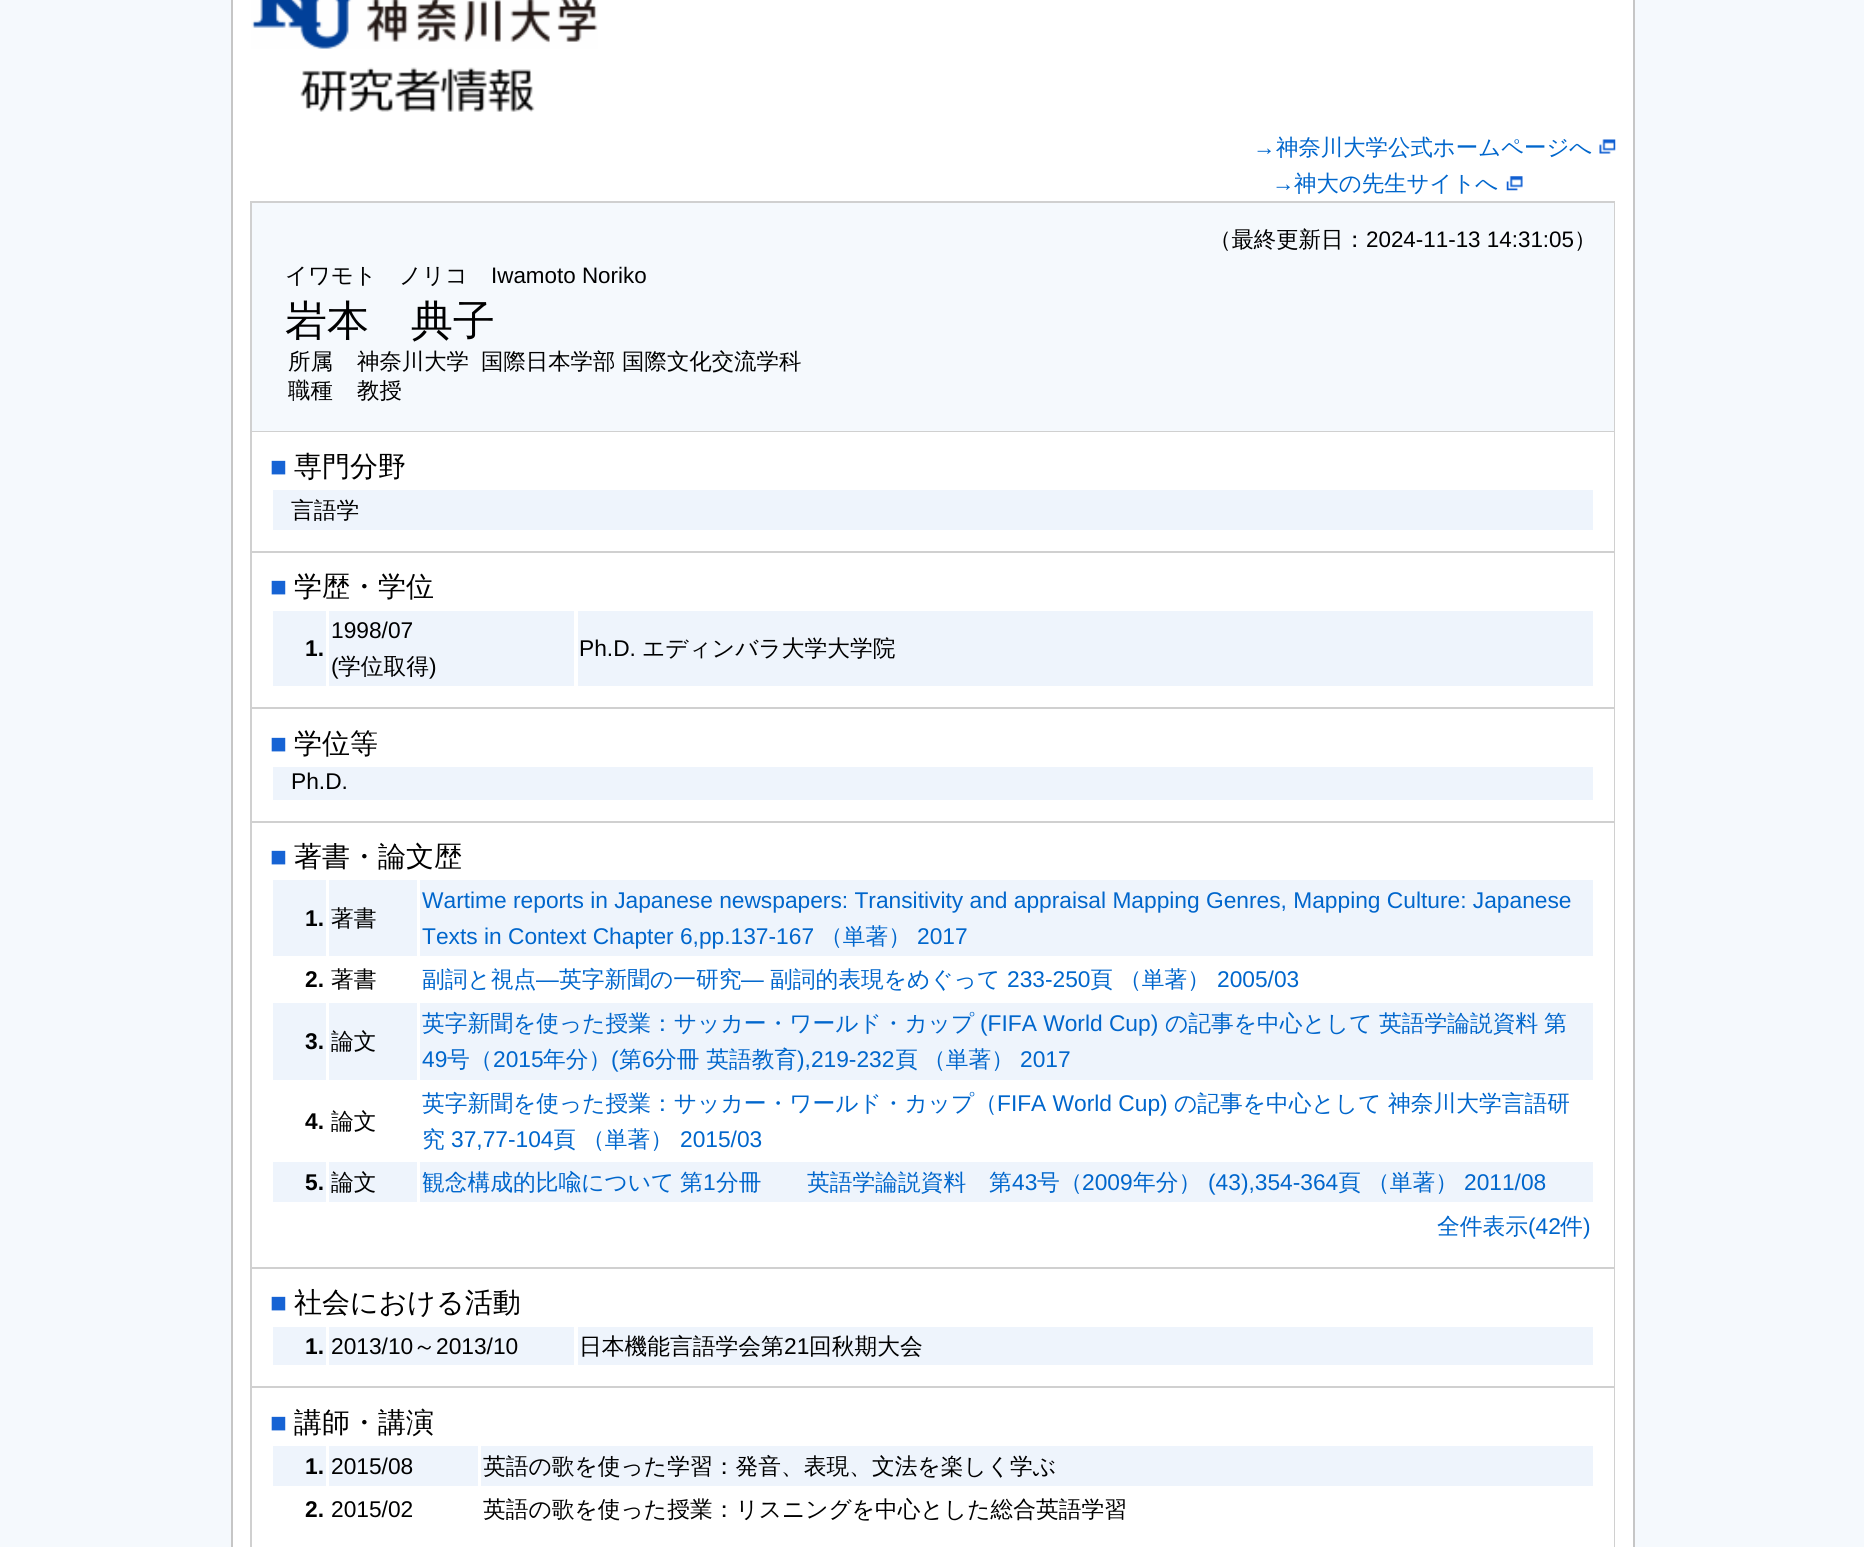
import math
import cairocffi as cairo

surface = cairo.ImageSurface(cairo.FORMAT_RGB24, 1864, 1547)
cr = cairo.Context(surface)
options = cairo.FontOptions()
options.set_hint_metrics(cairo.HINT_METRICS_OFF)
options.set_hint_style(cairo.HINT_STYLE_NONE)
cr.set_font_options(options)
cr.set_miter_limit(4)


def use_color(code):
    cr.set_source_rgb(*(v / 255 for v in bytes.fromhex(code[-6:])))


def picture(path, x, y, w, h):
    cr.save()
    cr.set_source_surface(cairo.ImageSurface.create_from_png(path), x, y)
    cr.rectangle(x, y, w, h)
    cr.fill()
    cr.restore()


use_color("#f5f9fd")
cr.paint()
use_color("#ffffff")
cr.rectangle(232, -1, 1402, 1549)
cr.fill_preserve()
use_color("#c6c6c6")
cr.stroke()
picture("img1.png", 251, 0, 347, 49)
picture("img2.png", 300, 67, 235, 45)
cr.select_font_face("Liberation Sans")
cr.set_font_size(22.4)
use_color("#0066cc")
cr.move_to(1253, 155)
cr.show_text("→")
cr.select_font_face("WenQuanYi Zen Hei Medium")
cr.move_to(1276, 155)
cr.show_text("神奈川大学公式ホームページへ")
picture("img3.png", 1599, 139, 17, 15)
cr.select_font_face("Liberation Sans")
cr.move_to(1272, 191)
cr.show_text("→")
cr.select_font_face("WenQuanYi Zen Hei Medium")
cr.move_to(1294, 191)
cr.show_text("神大の先生サイトへ")
picture("img4.png", 1506, 176, 17, 15)
use_color("#d0d0d0")
cr.rectangle(250, 201, 1365, 1346)
cr.fill()
use_color("#f5f9fd")
cr.rectangle(252, 203, 1362, 228)
cr.fill()
use_color("#000000")
cr.move_to(1209, 247)
cr.show_text("（最終更新日：")
cr.select_font_face("Liberation Sans")
cr.move_to(1366, 247)
cr.show_text("2024-11-13 14:31:05")
cr.select_font_face("WenQuanYi Zen Hei Medium")
cr.move_to(1574, 247)
cr.show_text("）")
cr.move_to(285, 283)
cr.show_text("イワモト　ノリコ")
cr.select_font_face("Liberation Sans")
cr.move_to(491, 283)
cr.show_text("Iwamoto Noriko")
cr.select_font_face("WenQuanYi Zen Hei Medium")
cr.set_font_size(42)
cr.move_to(285, 335)
cr.show_text("岩本　典子")
cr.set_font_size(22.4)
cr.move_to(288, 369)
cr.show_text("所属")
cr.move_to(357, 369)
cr.show_text("神奈川大学")
cr.move_to(481, 369)
cr.show_text("国際日本学部 国際文化交流学科")
cr.move_to(288, 398)
cr.show_text("職種")
cr.move_to(357, 398)
cr.show_text("教授")
use_color("#ffffff")
cr.rectangle(252, 432, 1362, 119)
cr.fill()
cr.select_font_face("Liberation Sans")
cr.set_font_size(28)
use_color("#1663d4")
cr.move_to(270, 476)
cr.show_text("■")
cr.select_font_face("WenQuanYi Zen Hei Medium")
use_color("#000000")
cr.move_to(294, 476)
cr.show_text("専門分野")
use_color("#eef4fc")
cr.rectangle(273, 490, 1320, 40)
cr.fill()
cr.set_font_size(22.75)
use_color("#000000")
cr.move_to(291, 518)
cr.show_text("言語学")
use_color("#ffffff")
cr.rectangle(252, 553, 1362, 154)
cr.fill()
cr.select_font_face("Liberation Sans")
cr.set_font_size(28)
use_color("#1663d4")
cr.move_to(270, 596)
cr.show_text("■")
cr.select_font_face("WenQuanYi Zen Hei Medium")
use_color("#000000")
cr.move_to(294, 596)
cr.show_text("学歴・学位")
use_color("#eef4fc")
cr.rectangle(273, 611, 53, 75)
cr.fill()
cr.select_font_face("Liberation Sans", cairo.FONT_SLANT_NORMAL, cairo.FONT_WEIGHT_BOLD)
cr.set_font_size(22.75)
use_color("#000000")
cr.move_to(305, 656)
cr.show_text("1.")
use_color("#eef4fc")
cr.rectangle(329, 611, 245, 75)
cr.fill()
cr.select_font_face("Liberation Sans")
use_color("#000000")
cr.move_to(331, 638)
cr.show_text("1998/07")
cr.move_to(331, 674)
cr.show_text("(")
cr.select_font_face("WenQuanYi Zen Hei Medium")
cr.move_to(338, 674)
cr.show_text("学位取得")
cr.select_font_face("Liberation Sans")
cr.move_to(429, 674)
cr.show_text(")")
use_color("#eef4fc")
cr.rectangle(578, 611, 1015, 75)
cr.fill()
use_color("#000000")
cr.move_to(579, 656)
cr.show_text("Ph.D.")
cr.select_font_face("WenQuanYi Zen Hei Medium")
cr.move_to(642, 656)
cr.show_text("エディンバラ大学大学院")
use_color("#ffffff")
cr.rectangle(252, 709, 1362, 112)
cr.fill()
cr.select_font_face("Liberation Sans")
cr.set_font_size(28)
use_color("#1663d4")
cr.move_to(270, 753)
cr.show_text("■")
cr.select_font_face("WenQuanYi Zen Hei Medium")
use_color("#000000")
cr.move_to(294, 753)
cr.show_text("学位等")
use_color("#eef4fc")
cr.rectangle(273, 767, 1320, 33)
cr.fill()
cr.select_font_face("Liberation Sans")
cr.set_font_size(22.75)
use_color("#000000")
cr.move_to(291, 789)
cr.show_text("Ph.D.")
use_color("#ffffff")
cr.rectangle(252, 823, 1362, 444)
cr.fill()
cr.set_font_size(28)
use_color("#1663d4")
cr.move_to(270, 866)
cr.show_text("■")
cr.select_font_face("WenQuanYi Zen Hei Medium")
use_color("#000000")
cr.move_to(294, 866)
cr.show_text("著書・論文歴")
use_color("#eef4fc")
cr.rectangle(273, 880, 53, 76)
cr.fill()
cr.select_font_face("Liberation Sans", cairo.FONT_SLANT_NORMAL, cairo.FONT_WEIGHT_BOLD)
cr.set_font_size(22.75)
use_color("#000000")
cr.move_to(305, 926)
cr.show_text("1.")
use_color("#eef4fc")
cr.rectangle(329, 880, 88, 76)
cr.fill()
cr.select_font_face("WenQuanYi Zen Hei Medium")
use_color("#000000")
cr.move_to(331, 926)
cr.show_text("著書")
use_color("#eef4fc")
cr.rectangle(420, 880, 1173, 76)
cr.fill()
cr.select_font_face("Liberation Sans")
use_color("#0066cc")
cr.move_to(422, 908)
cr.show_text("Wartime reports in Japanese newspapers: Transitivity and appraisal Mapping Genres, Mapping Culture: Japanese")
cr.move_to(422, 944)
cr.show_text("Texts in Context Chapter 6,pp.137-167")
cr.select_font_face("WenQuanYi Zen Hei Medium")
cr.move_to(820, 944)
cr.show_text("（単著）")
cr.select_font_face("Liberation Sans")
cr.move_to(917, 944)
cr.show_text("2017")
cr.select_font_face("Liberation Sans", cairo.FONT_SLANT_NORMAL, cairo.FONT_WEIGHT_BOLD)
use_color("#000000")
cr.move_to(305, 987)
cr.show_text("2.")
cr.select_font_face("WenQuanYi Zen Hei Medium")
cr.move_to(331, 987)
cr.show_text("著書")
use_color("#0066cc")
cr.move_to(422, 987)
cr.show_text("副詞と視点")
cr.select_font_face("Liberation Sans")
cr.move_to(536, 987)
cr.show_text("―")
cr.select_font_face("WenQuanYi Zen Hei Medium")
cr.move_to(559, 987)
cr.show_text("英字新聞の一研究")
cr.select_font_face("Liberation Sans")
cr.move_to(741, 987)
cr.show_text("―")
cr.select_font_face("WenQuanYi Zen Hei Medium")
cr.move_to(770, 987)
cr.show_text("副詞的表現をめぐって")
cr.select_font_face("Liberation Sans")
cr.move_to(1007, 987)
cr.show_text("233-250")
cr.select_font_face("WenQuanYi Zen Hei Medium")
cr.move_to(1090, 987)
cr.show_text("頁")
cr.move_to(1119, 987)
cr.show_text("（単著）")
cr.select_font_face("Liberation Sans")
cr.move_to(1217, 987)
cr.show_text("2005/03")
use_color("#eef4fc")
cr.rectangle(273, 1003, 53, 77)
cr.fill()
cr.select_font_face("Liberation Sans", cairo.FONT_SLANT_NORMAL, cairo.FONT_WEIGHT_BOLD)
use_color("#000000")
cr.move_to(305, 1049)
cr.show_text("3.")
use_color("#eef4fc")
cr.rectangle(329, 1003, 88, 77)
cr.fill()
cr.select_font_face("WenQuanYi Zen Hei Medium")
use_color("#000000")
cr.move_to(331, 1049)
cr.show_text("論文")
use_color("#eef4fc")
cr.rectangle(420, 1003, 1173, 77)
cr.fill()
use_color("#0066cc")
cr.move_to(422, 1031)
cr.show_text("英字新聞を使った授業：サッカー・ワールド・カップ")
cr.select_font_face("Liberation Sans")
cr.move_to(980, 1031)
cr.show_text("(FIFA World Cup)")
cr.select_font_face("WenQuanYi Zen Hei Medium")
cr.move_to(1165, 1031)
cr.show_text("の記事を中心として")
cr.move_to(1379, 1031)
cr.show_text("英語学論説資料")
cr.move_to(1544, 1031)
cr.show_text("第")
cr.select_font_face("Liberation Sans")
cr.move_to(422, 1067)
cr.show_text("49")
cr.select_font_face("WenQuanYi Zen Hei Medium")
cr.move_to(447, 1067)
cr.show_text("号（")
cr.select_font_face("Liberation Sans")
cr.move_to(493, 1067)
cr.show_text("2015")
cr.select_font_face("WenQuanYi Zen Hei Medium")
cr.move_to(543, 1067)
cr.show_text("年分）")
cr.select_font_face("Liberation Sans")
cr.move_to(611, 1067)
cr.show_text("(")
cr.select_font_face("WenQuanYi Zen Hei Medium")
cr.move_to(619, 1067)
cr.show_text("第")
cr.select_font_face("Liberation Sans")
cr.move_to(642, 1067)
cr.show_text("6")
cr.select_font_face("WenQuanYi Zen Hei Medium")
cr.move_to(654, 1067)
cr.show_text("分冊 英語教育")
cr.select_font_face("Liberation Sans")
cr.move_to(797, 1067)
cr.show_text("),219-232")
cr.select_font_face("WenQuanYi Zen Hei Medium")
cr.move_to(895, 1067)
cr.show_text("頁")
cr.move_to(923, 1067)
cr.show_text("（単著）")
cr.select_font_face("Liberation Sans")
cr.move_to(1020, 1067)
cr.show_text("2017")
cr.select_font_face("Liberation Sans", cairo.FONT_SLANT_NORMAL, cairo.FONT_WEIGHT_BOLD)
use_color("#000000")
cr.move_to(305, 1129)
cr.show_text("4.")
cr.select_font_face("WenQuanYi Zen Hei Medium")
cr.move_to(331, 1129)
cr.show_text("論文")
use_color("#0066cc")
cr.move_to(422, 1111)
cr.show_text("英字新聞を使った授業：サッカー・ワールド・カップ（")
cr.select_font_face("Liberation Sans")
cr.move_to(997, 1111)
cr.show_text("FIFA World Cup)")
cr.select_font_face("WenQuanYi Zen Hei Medium")
cr.move_to(1174, 1111)
cr.show_text("の記事を中心として")
cr.move_to(1388, 1111)
cr.show_text("神奈川大学言語研")
cr.move_to(422, 1147)
cr.show_text("究")
cr.select_font_face("Liberation Sans")
cr.move_to(451, 1147)
cr.show_text("37,77-104")
cr.select_font_face("WenQuanYi Zen Hei Medium")
cr.move_to(553, 1147)
cr.show_text("頁")
cr.move_to(582, 1147)
cr.show_text("（単著）")
cr.select_font_face("Liberation Sans")
cr.move_to(680, 1147)
cr.show_text("2015/03")
use_color("#eef4fc")
cr.rectangle(273, 1162, 53, 40)
cr.fill()
cr.select_font_face("Liberation Sans", cairo.FONT_SLANT_NORMAL, cairo.FONT_WEIGHT_BOLD)
use_color("#000000")
cr.move_to(305, 1190)
cr.show_text("5.")
use_color("#eef4fc")
cr.rectangle(329, 1162, 88, 40)
cr.fill()
cr.select_font_face("WenQuanYi Zen Hei Medium")
use_color("#000000")
cr.move_to(331, 1190)
cr.show_text("論文")
use_color("#eef4fc")
cr.rectangle(420, 1162, 1173, 40)
cr.fill()
use_color("#0066cc")
cr.move_to(422, 1190)
cr.show_text("観念構成的比喩について")
cr.move_to(680, 1190)
cr.show_text("第")
cr.select_font_face("Liberation Sans")
cr.move_to(703, 1190)
cr.show_text("1")
cr.select_font_face("WenQuanYi Zen Hei Medium")
cr.move_to(716, 1190)
cr.show_text("分冊　　英語学論説資料　第")
cr.select_font_face("Liberation Sans")
cr.move_to(1012, 1190)
cr.show_text("43")
cr.select_font_face("WenQuanYi Zen Hei Medium")
cr.move_to(1037, 1190)
cr.show_text("号（")
cr.select_font_face("Liberation Sans")
cr.move_to(1082, 1190)
cr.show_text("2009")
cr.select_font_face("WenQuanYi Zen Hei Medium")
cr.move_to(1133, 1190)
cr.show_text("年分）")
cr.select_font_face("Liberation Sans")
cr.move_to(1208, 1190)
cr.show_text("(43),354-364")
cr.select_font_face("WenQuanYi Zen Hei Medium")
cr.move_to(1338, 1190)
cr.show_text("頁")
cr.move_to(1367, 1190)
cr.show_text("（単著）")
cr.select_font_face("Liberation Sans")
cr.move_to(1464, 1190)
cr.show_text("2011/08")
cr.select_font_face("WenQuanYi Zen Hei Medium")
cr.move_to(1437, 1234)
cr.show_text("全件表示")
cr.select_font_face("Liberation Sans")
cr.move_to(1528, 1234)
cr.show_text("(42")
cr.select_font_face("WenQuanYi Zen Hei Medium")
cr.move_to(1560, 1234)
cr.show_text("件")
cr.select_font_face("Liberation Sans")
cr.move_to(1583, 1234)
cr.show_text(")")
use_color("#ffffff")
cr.rectangle(252, 1269, 1362, 117)
cr.fill()
cr.set_font_size(28)
use_color("#1663d4")
cr.move_to(270, 1312)
cr.show_text("■")
cr.select_font_face("WenQuanYi Zen Hei Medium")
use_color("#000000")
cr.move_to(294, 1312)
cr.show_text("社会における活動")
use_color("#eef4fc")
cr.rectangle(273, 1327, 53, 38)
cr.fill()
cr.select_font_face("Liberation Sans", cairo.FONT_SLANT_NORMAL, cairo.FONT_WEIGHT_BOLD)
cr.set_font_size(22.75)
use_color("#000000")
cr.move_to(305, 1354)
cr.show_text("1.")
use_color("#eef4fc")
cr.rectangle(329, 1327, 245, 38)
cr.fill()
cr.select_font_face("Liberation Sans")
use_color("#000000")
cr.move_to(331, 1354)
cr.show_text("2013/10")
cr.select_font_face("WenQuanYi Zen Hei Medium")
cr.move_to(413, 1354)
cr.show_text("～")
cr.select_font_face("Liberation Sans")
cr.move_to(436, 1354)
cr.show_text("2013/10")
use_color("#eef4fc")
cr.rectangle(578, 1327, 1015, 38)
cr.fill()
cr.select_font_face("WenQuanYi Zen Hei Medium")
use_color("#000000")
cr.move_to(579, 1354)
cr.show_text("日本機能言語学会第")
cr.select_font_face("Liberation Sans")
cr.move_to(784, 1354)
cr.show_text("21")
cr.select_font_face("WenQuanYi Zen Hei Medium")
cr.move_to(809, 1354)
cr.show_text("回秋期大会")
use_color("#ffffff")
cr.rectangle(252, 1388, 1362, 159)
cr.fill()
cr.select_font_face("Liberation Sans")
cr.set_font_size(28)
use_color("#1663d4")
cr.move_to(270, 1432)
cr.show_text("■")
cr.select_font_face("WenQuanYi Zen Hei Medium")
use_color("#000000")
cr.move_to(294, 1432)
cr.show_text("講師・講演")
use_color("#eef4fc")
cr.rectangle(273, 1446, 53, 40)
cr.fill()
cr.select_font_face("Liberation Sans", cairo.FONT_SLANT_NORMAL, cairo.FONT_WEIGHT_BOLD)
cr.set_font_size(22.75)
use_color("#000000")
cr.move_to(305, 1474)
cr.show_text("1.")
use_color("#eef4fc")
cr.rectangle(329, 1446, 149, 40)
cr.fill()
cr.select_font_face("Liberation Sans")
use_color("#000000")
cr.move_to(331, 1474)
cr.show_text("2015/08")
use_color("#eef4fc")
cr.rectangle(481, 1446, 1112, 40)
cr.fill()
cr.select_font_face("WenQuanYi Zen Hei Medium")
use_color("#000000")
cr.move_to(483, 1474)
cr.show_text("英語の歌を使った学習：発音、表現、文法を楽しく学ぶ")
cr.select_font_face("Liberation Sans", cairo.FONT_SLANT_NORMAL, cairo.FONT_WEIGHT_BOLD)
cr.move_to(305, 1517)
cr.show_text("2.")
cr.select_font_face("Liberation Sans")
cr.move_to(331, 1517)
cr.show_text("2015/02")
cr.select_font_face("WenQuanYi Zen Hei Medium")
cr.move_to(483, 1517)
cr.show_text("英語の歌を使った授業：リスニングを中心とした総合英語学習")
surface.write_to_png("result.png")
